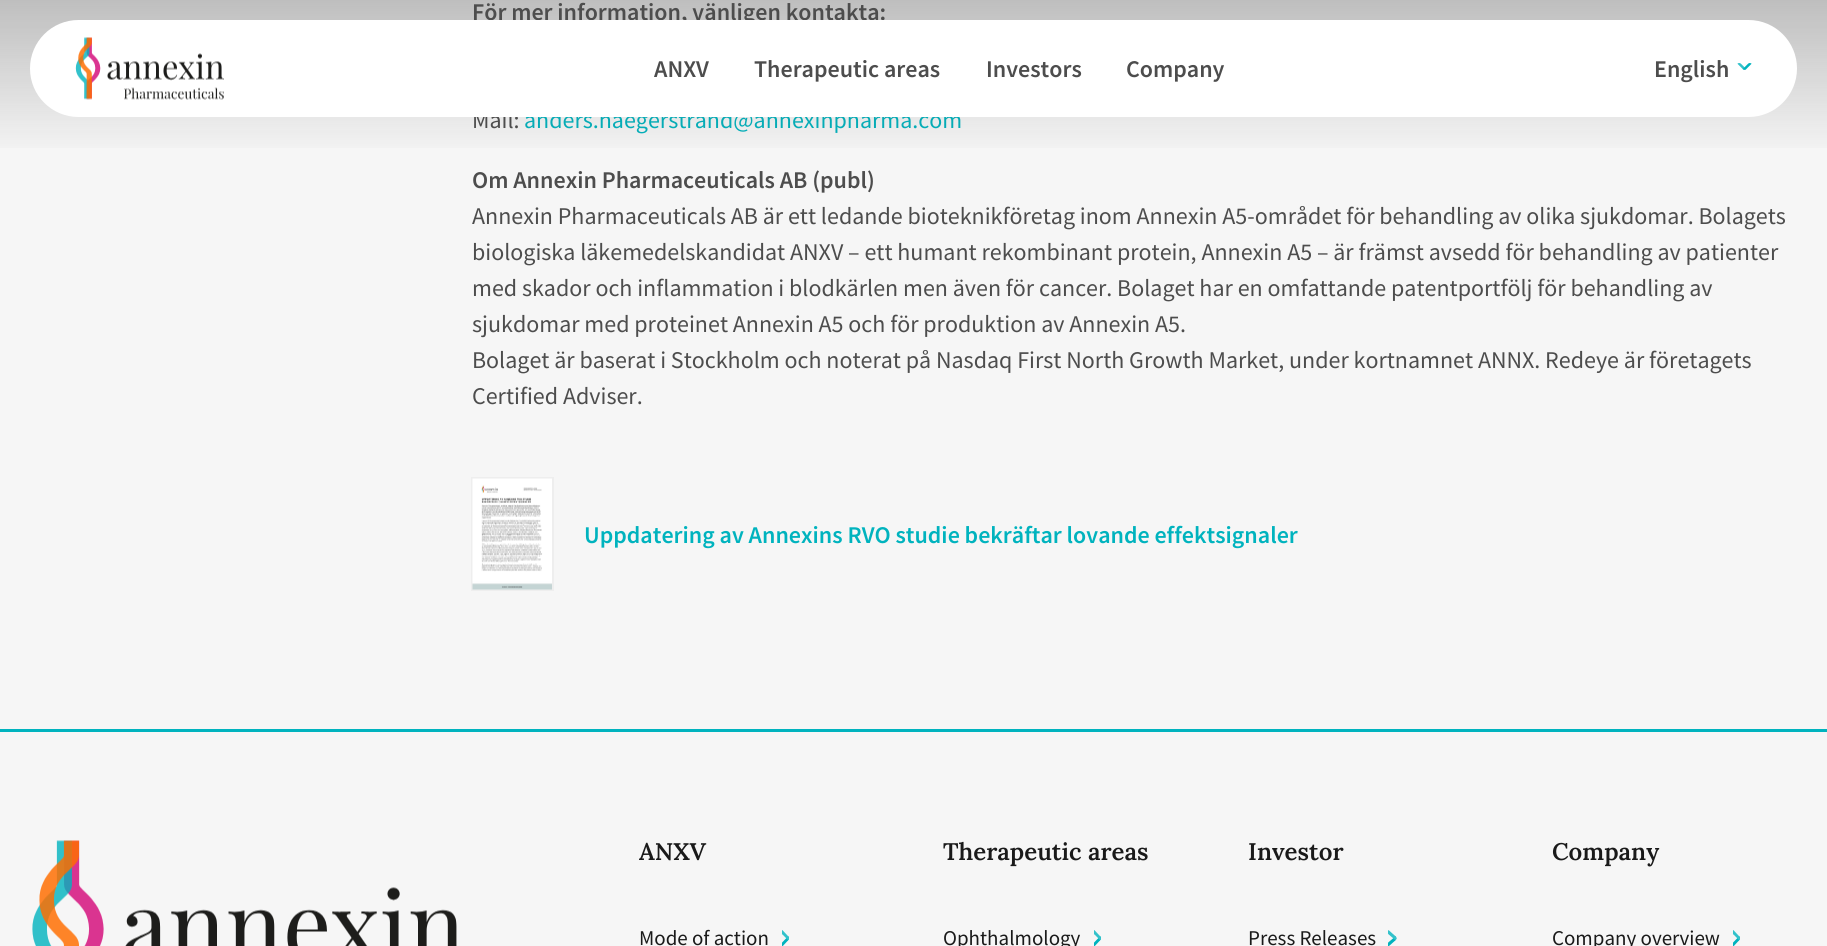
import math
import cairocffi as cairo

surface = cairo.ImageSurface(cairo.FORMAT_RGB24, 1827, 946)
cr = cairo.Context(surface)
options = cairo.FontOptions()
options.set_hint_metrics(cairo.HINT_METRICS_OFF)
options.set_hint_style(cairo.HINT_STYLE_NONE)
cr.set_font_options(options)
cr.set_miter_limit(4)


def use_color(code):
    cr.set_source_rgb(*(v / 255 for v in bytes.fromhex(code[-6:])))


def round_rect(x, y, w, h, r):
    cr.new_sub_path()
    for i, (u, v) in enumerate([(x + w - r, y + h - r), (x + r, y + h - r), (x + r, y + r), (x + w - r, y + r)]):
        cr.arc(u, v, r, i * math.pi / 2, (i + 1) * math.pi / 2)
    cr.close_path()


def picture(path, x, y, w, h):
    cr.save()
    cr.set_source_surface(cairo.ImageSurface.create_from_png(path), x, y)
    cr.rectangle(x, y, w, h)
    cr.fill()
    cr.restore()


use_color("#f6f6f6")
cr.paint()
cr.select_font_face("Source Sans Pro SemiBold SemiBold")
cr.set_font_size(24)
use_color("#4d4d4d")
cr.move_to(472, 20)
cr.show_text("För mer information, vänligen kontakta:")
cr.select_font_face("Source Sans Pro")
cr.move_to(472, 128)
cr.show_text("Mail:")
use_color("#00b3be")
cr.move_to(524, 128)
cr.show_text("anders.haegerstrand@annexinpharma.com")
cr.select_font_face("Source Sans Pro SemiBold SemiBold")
use_color("#4d4d4d")
cr.move_to(472, 188)
cr.show_text("Om Annexin Pharmaceuticals AB (publ)")
cr.select_font_face("Source Sans Pro")
cr.move_to(472, 224)
cr.show_text("Annexin Pharmaceuticals AB är ett ledande bioteknikföretag inom Annexin A5-området för behandling av olika sjukdomar. Bolagets")
cr.move_to(472, 260)
cr.show_text("biologiska läkemedelskandidat ANXV – ett humant rekombinant protein, Annexin A5 – är främst avsedd för behandling av patienter")
cr.move_to(472, 296)
cr.show_text("med skador och inflammation i blodkärlen men även för cancer. Bolaget har en omfattande patentportfölj för behandling av")
cr.move_to(472, 332)
cr.show_text("sjukdomar med proteinet Annexin A5 och för produktion av Annexin A5.")
cr.move_to(472, 368)
cr.show_text("Bolaget är baserat i Stockholm och noterat på Nasdaq First North Growth Market, under kortnamnet ANNX. Redeye är företagets")
cr.move_to(472, 404)
cr.show_text("Certified Adviser.")
cr.rectangle(472, 478, 81, 112)
use_color("#eeeeee")
cr.stroke()
picture("img1.png", 472, 478, 80, 112)
cr.select_font_face("Source Sans Pro SemiBold SemiBold")
use_color("#00b3be")
cr.move_to(584, 543)
cr.show_text("Uppdatering av Annexins RVO studie bekräftar lovande effektsignaler")
cr.rectangle(0, 729, 1827, 3)
cr.fill()
picture("img2.png", 32, 840, 425, 106)
cr.select_font_face("Lora SemiBold")
use_color("#1a1a1a")
cr.move_to(639, 860)
cr.show_text("ANXV")
cr.select_font_face("Source Sans Pro")
cr.set_font_size(21)
cr.move_to(639, 945)
cr.show_text("Mode of action")
picture("img3.png", 782, 930, 7, 16)
cr.select_font_face("Lora SemiBold")
cr.set_font_size(24)
cr.move_to(943, 860)
cr.show_text("Therapeutic areas")
cr.select_font_face("Source Sans Pro")
cr.set_font_size(21)
cr.move_to(943, 945)
cr.show_text("Ophthalmology")
picture("img3.png", 1094, 930, 7, 16)
cr.select_font_face("Lora SemiBold")
cr.set_font_size(24)
cr.move_to(1248, 860)
cr.show_text("Investor")
cr.select_font_face("Source Sans Pro")
cr.set_font_size(21)
cr.move_to(1248, 945)
cr.show_text("Press Releases")
picture("img4.png", 1388, 930, 9, 16)
cr.select_font_face("Lora SemiBold")
cr.set_font_size(24)
cr.move_to(1552, 860)
cr.show_text("Company")
cr.select_font_face("Source Sans Pro")
cr.set_font_size(21)
cr.move_to(1552, 945)
cr.show_text("Company overview")
picture("img3.png", 1733, 930, 7, 16)
gradient = cairo.LinearGradient(914, 0, 914, 158)
gradient.add_color_stop_rgba(0, 0.302, 0.302, 0.302, 0.33)
gradient.add_color_stop_rgba(1, 0.302, 0.302, 0.302, 0)
cr.set_source(gradient)
cr.rectangle(0, 0, 1827, 148)
cr.fill()
use_color("#ffffff")
round_rect(30, 20, 1767, 97, 48.5)
cr.fill()
picture("img5.png", 75, 37, 149, 63)
cr.select_font_face("Source Sans Pro SemiBold SemiBold")
cr.set_font_size(24)
use_color("#4d4d4d")
cr.move_to(654, 77)
cr.show_text("ANXV")
cr.move_to(754, 77)
cr.show_text("Therapeutic areas")
cr.move_to(986, 77)
cr.show_text("Investors")
cr.move_to(1126, 77)
cr.show_text("Company")
cr.move_to(1654, 77)
cr.show_text("English")
picture("img6.png", 1737, 63, 15, 7)
surface.write_to_png("result.png")
